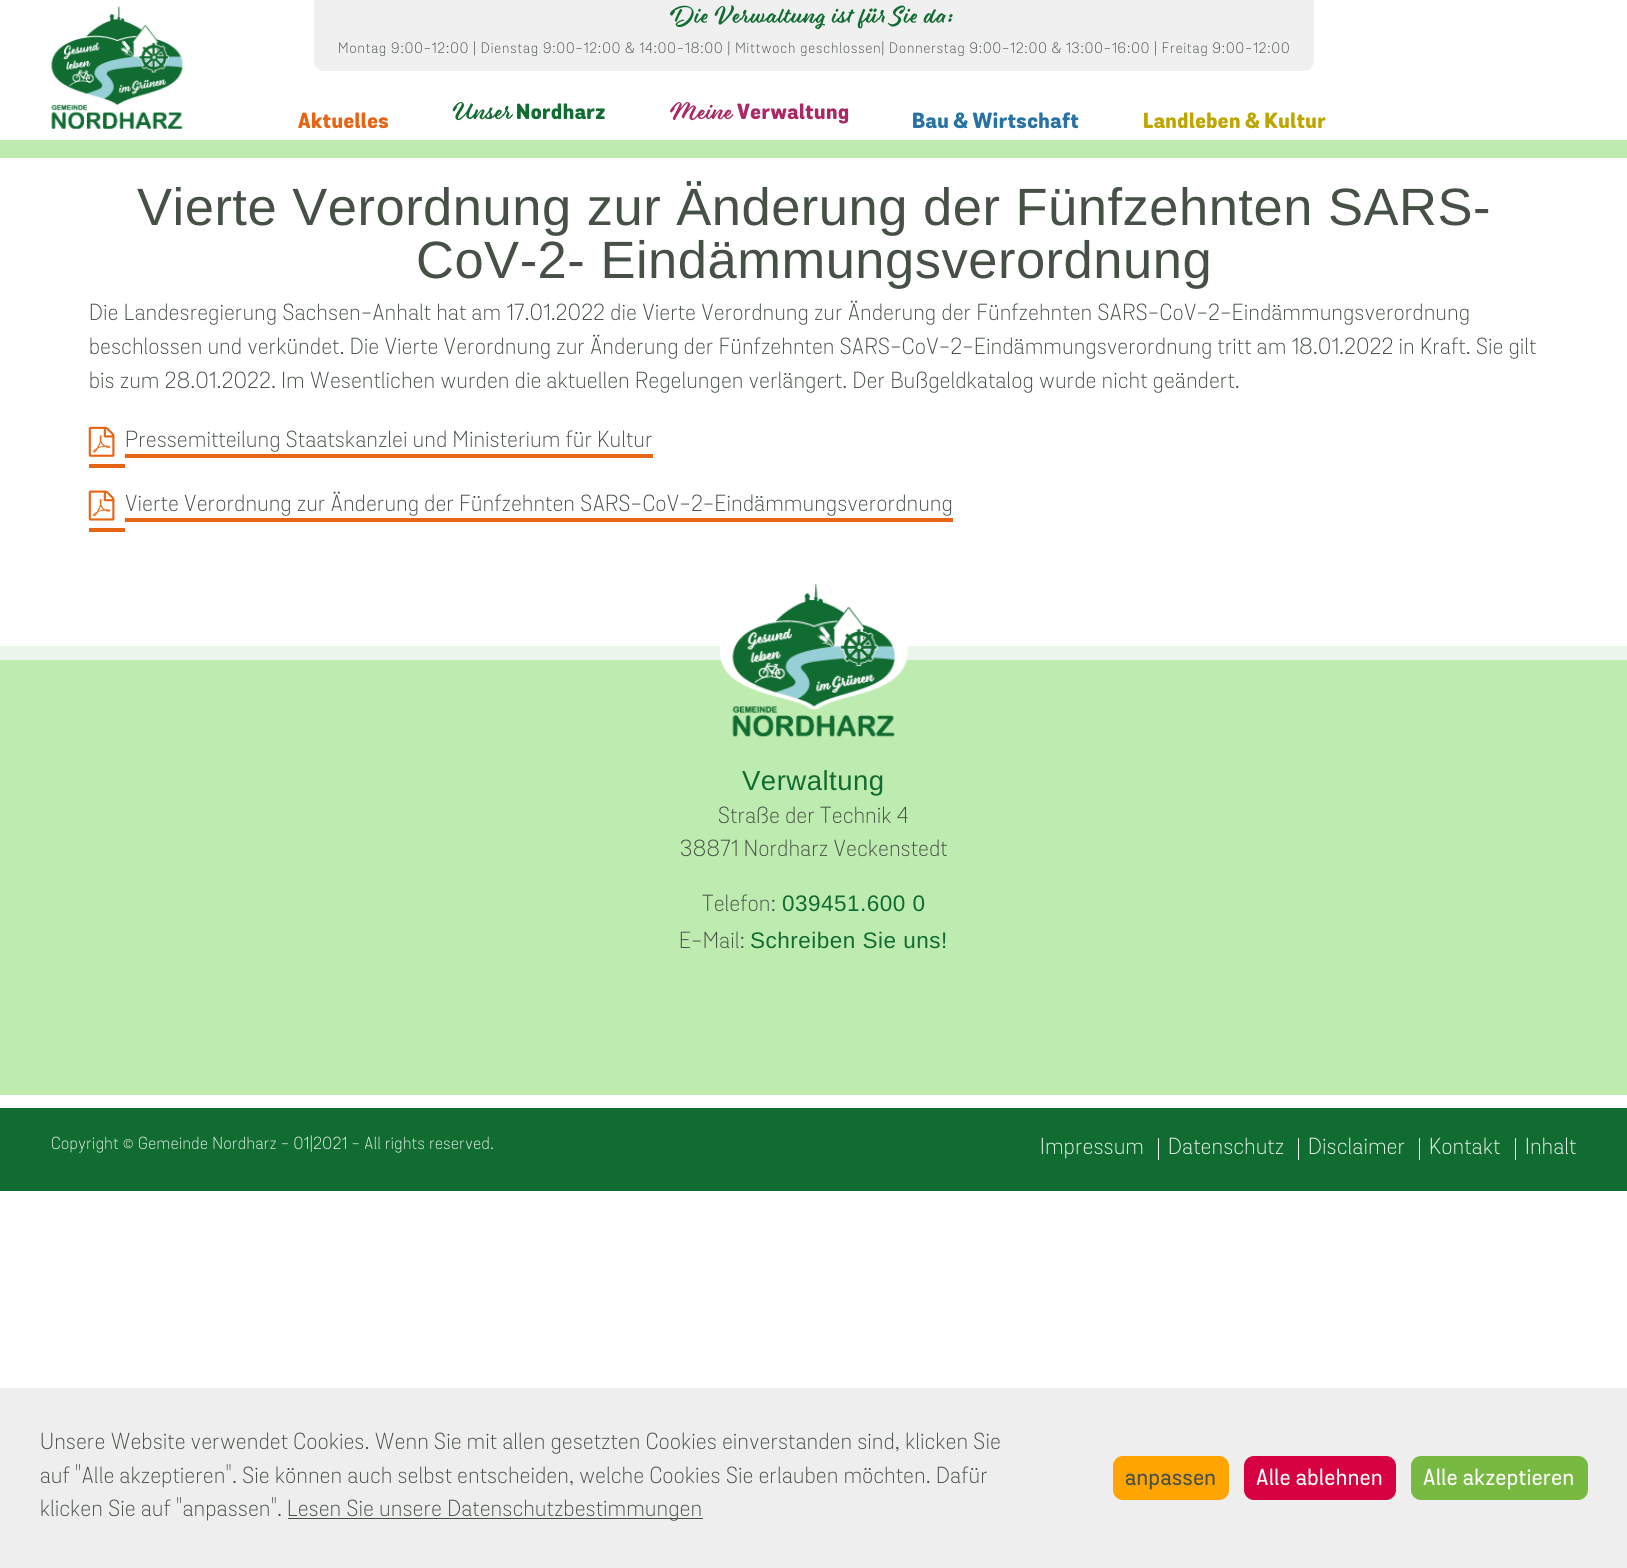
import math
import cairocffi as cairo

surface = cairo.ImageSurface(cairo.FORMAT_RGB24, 1627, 1568)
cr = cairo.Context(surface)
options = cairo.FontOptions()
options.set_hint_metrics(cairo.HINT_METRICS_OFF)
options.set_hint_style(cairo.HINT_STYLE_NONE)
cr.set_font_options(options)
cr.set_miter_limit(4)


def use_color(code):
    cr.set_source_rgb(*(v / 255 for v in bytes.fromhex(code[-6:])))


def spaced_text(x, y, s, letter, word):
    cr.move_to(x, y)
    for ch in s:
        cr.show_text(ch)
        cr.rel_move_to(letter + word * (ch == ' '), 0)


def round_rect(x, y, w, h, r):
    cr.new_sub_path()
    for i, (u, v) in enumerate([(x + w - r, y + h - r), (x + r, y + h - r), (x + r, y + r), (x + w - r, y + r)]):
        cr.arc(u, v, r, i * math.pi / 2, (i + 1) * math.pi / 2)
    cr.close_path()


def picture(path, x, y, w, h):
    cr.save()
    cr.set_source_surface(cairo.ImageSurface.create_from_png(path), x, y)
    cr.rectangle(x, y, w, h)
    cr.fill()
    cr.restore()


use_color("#ffffff")
cr.paint()
use_color("#beebaf")
cr.rectangle(0, 140, 1627, 18)
cr.fill()
picture("img1.png", 51, 6, 133, 123)
use_color("#eff0ef")
cr.new_path()
cr.move_to(314, 0)
cr.line_to(1314, 0)
cr.line_to(1314, 61)
cr.curve_to(1314, 66.5, 1309.5, 71, 1304, 71)
cr.line_to(324, 71)
cr.curve_to(318.5, 71, 314, 66.5, 314, 61)
cr.close_path()
cr.fill()
picture("img2.png", 670, 5, 283, 25)
cr.select_font_face("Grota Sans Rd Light")
cr.set_font_size(14.62)
use_color("#465046")
spaced_text(338, 53, "Montag 9:00-12:00 | Dienstag 9:00-12:00 & 14:00-18:00 | Mittwoch geschlossen| Donnerstag 9:00-12:00 & 13:00-16:00 | Freitag 9:00-12:00", 1, 0)
cr.select_font_face("Grota Sans Rd ExtraBold")
cr.set_font_size(21.25)
use_color("#e66414")
spaced_text(298, 128, "Aktuelles", 0.5, 0)
picture("img3.png", 452, 102, 61, 19)
use_color("#116c32")
spaced_text(516, 119, "Nordharz", 0.5, 0)
picture("img4.png", 670, 102, 64, 19)
use_color("#aa2864")
spaced_text(737, 119, "Verwaltung", 0.5, 0)
use_color("#2873a5")
spaced_text(912, 128, "Bau & Wirtschaft", 0.5, 0)
use_color("#bea500")
spaced_text(1143, 128, "Landleben & Kultur", 0.5, 0)
cr.select_font_face("Liberation Sans")
cr.set_font_size(52.5)
use_color("#465046")
spaced_text(137, 225, "Vierte Verordnung zur Änderung der Fünfzehnten SARS-", 0.5, 0)
spaced_text(416, 278, "CoV-2- Eindämmungsverordnung", 0.5, 0)
cr.select_font_face("Grota Sans Rd Light")
cr.set_font_size(22.5)
spaced_text(89, 320, "Die Landesregierung Sachsen-Anhalt hat am 17.01.2022 die Vierte Verordnung zur Änderung der Fünfzehnten SARS-CoV-2-Eindämmungsverordnung", 0.5, 0)
spaced_text(89, 354, "beschlossen und verkündet. Die Vierte Verordnung zur Änderung der Fünfzehnten SARS-CoV-2-Eindämmungsverordnung tritt am 18.01.2022 in Kraft. Sie gilt", 0.5, 0)
spaced_text(89, 388, "bis zum 28.01.2022. Im Wesentlichen wurden die aktuellen Regelungen verlängert. Der Bußgeldkatalog wurde nicht geändert.", 0.5, 0)
picture("img5.png", 88, 426, 27, 31)
spaced_text(125, 447, "Pressemitteilung Staatskanzlei und Ministerium für Kultur", 0.5, 0)
use_color("#e66414")
cr.rectangle(89, 464, 36, 4)
cr.fill()
cr.rectangle(125, 454, 528, 4)
cr.fill()
picture("img6.png", 88, 490, 27, 31)
use_color("#465046")
spaced_text(125, 511, "Vierte Verordnung zur Änderung der Fünfzehnten SARS-CoV-2-Eindämmungsverordnung", 0.5, 0)
use_color("#e66414")
cr.rectangle(89, 528, 36, 4)
cr.fill()
cr.rectangle(125, 518, 828, 4)
cr.fill()
use_color("#beebaf")
cr.rectangle(0, 660, 1627, 435)
cr.fill()
use_color("#ebf5eb")
cr.rectangle(0, 646, 1627, 14)
cr.fill()
picture("img7.png", 720, 584, 188, 153)
cr.select_font_face("Liberation Sans")
cr.set_font_size(27.5)
use_color("#116c32")
spaced_text(742, 790, "Verwaltung", 0.5, 0)
cr.select_font_face("Grota Sans Rd Light")
cr.set_font_size(22.5)
use_color("#465046")
spaced_text(718, 823, "Straße der Technik 4", 0.5, 0)
spaced_text(680, 856, "38871 Nordharz Veckenstedt", 0.5, 0)
spaced_text(702, 911, "Telefon:", 0.5, 0)
cr.select_font_face("Liberation Sans")
use_color("#116c32")
spaced_text(782, 911, "039451.600 0", 0.5, 0)
cr.select_font_face("Grota Sans Rd Light")
use_color("#465046")
spaced_text(679, 948, "E-Mail:", 0.5, 0)
cr.select_font_face("Liberation Sans")
use_color("#116c32")
spaced_text(750, 948, "Schreiben Sie uns!", 0.5, 0)
cr.rectangle(0, 1108, 1627, 83)
cr.fill()
cr.select_font_face("Grota Sans Rd Light")
cr.set_font_size(16.9)
use_color("#ebf5eb")
spaced_text(51, 1149, "Copyright © Gemeinde Nordharz - 01|2021 - All rights reserved.", 0.5, 0)
cr.set_font_size(22.5)
spaced_text(1040, 1154, "Impressum", 0.5, 0)
cr.rectangle(1158, 1138, 1, 22)
cr.fill()
spaced_text(1168, 1154, "Datenschutz", 0.5, 0)
cr.rectangle(1298, 1138, 1, 22)
cr.fill()
spaced_text(1308, 1154, "Disclaimer", 0.5, 0)
cr.rectangle(1419, 1138, 1, 22)
cr.fill()
spaced_text(1429, 1154, "Kontakt", 0.5, 0)
cr.rectangle(1515, 1138, 1, 22)
cr.fill()
spaced_text(1525, 1154, "Inhalt", 0.5, 0)
use_color("#eeeeee")
cr.rectangle(0, 1388, 1627, 180)
cr.fill()
use_color("#465046")
spaced_text(40, 1449, "Unsere Website verwendet Cookies. Wenn Sie mit allen gesetzten Cookies einverstanden sind, klicken Sie", 0.5, 0)
spaced_text(40, 1483, "auf \"Alle akzeptieren\". Sie können auch selbst entscheiden, welche Cookies Sie erlauben möchten. Dafür", 0.5, 0)
spaced_text(40, 1516, "klicken Sie auf \"anpassen\".", 0.5, 0)
cr.rectangle(288, 1518, 415, 1)
cr.fill()
spaced_text(287, 1516, "Lesen Sie unsere Datenschutzbestimmungen", 0.5, 0)
use_color("#ffa400")
round_rect(1113, 1456, 116, 44, 10)
cr.fill()
cr.select_font_face("Grota Sans Rd Medium")
use_color("#465046")
spaced_text(1125, 1485, "anpassen", 0.5, 0)
use_color("#d70041")
round_rect(1244, 1456, 152, 44, 10)
cr.fill()
use_color("#ffffff")
spaced_text(1256, 1485, "Alle ablehnen", 0.5, 0)
use_color("#78b941")
round_rect(1411, 1456, 177, 44, 10)
cr.fill()
use_color("#ffffff")
spaced_text(1423, 1485, "Alle akzeptieren", 0.5, 0)
surface.write_to_png("result.png")
